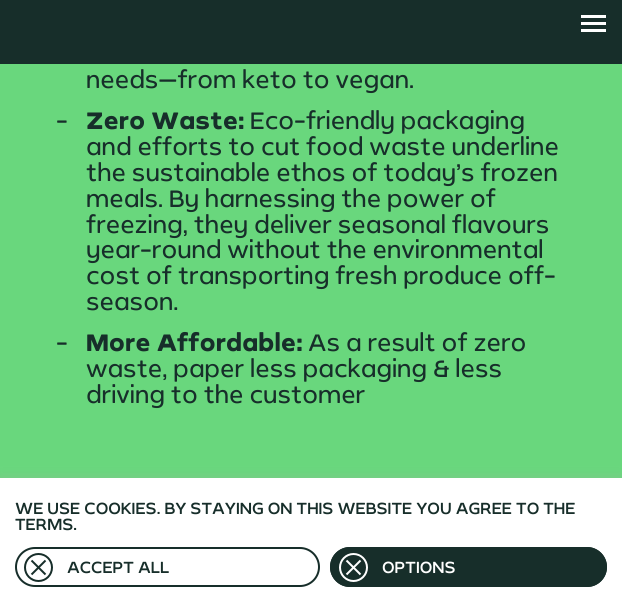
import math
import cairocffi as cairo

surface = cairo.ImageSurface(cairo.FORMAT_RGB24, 622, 597)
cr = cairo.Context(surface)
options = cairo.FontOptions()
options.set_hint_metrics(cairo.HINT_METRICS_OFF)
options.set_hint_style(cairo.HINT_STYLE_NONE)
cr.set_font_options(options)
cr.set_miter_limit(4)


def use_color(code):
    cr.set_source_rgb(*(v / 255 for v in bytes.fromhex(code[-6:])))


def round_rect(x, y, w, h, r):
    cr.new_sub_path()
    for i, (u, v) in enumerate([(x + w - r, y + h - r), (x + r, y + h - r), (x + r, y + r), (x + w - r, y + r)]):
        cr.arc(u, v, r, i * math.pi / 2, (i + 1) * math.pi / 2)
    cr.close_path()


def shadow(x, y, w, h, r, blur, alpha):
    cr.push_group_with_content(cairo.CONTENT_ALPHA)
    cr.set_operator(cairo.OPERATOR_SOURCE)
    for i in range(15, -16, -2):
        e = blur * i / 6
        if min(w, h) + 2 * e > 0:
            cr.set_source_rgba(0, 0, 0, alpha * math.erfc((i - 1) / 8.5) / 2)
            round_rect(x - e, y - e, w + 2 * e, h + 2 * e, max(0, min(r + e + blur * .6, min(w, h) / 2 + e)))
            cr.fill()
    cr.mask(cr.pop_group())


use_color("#69d77d")
cr.paint()
use_color("#172e2a")
cr.rectangle(0, 0, 622, 64)
cr.fill()
use_color("#ffffff")
cr.rectangle(581, 22, 25, 3)
cr.fill()
cr.rectangle(581, 15, 25, 3)
cr.fill()
cr.rectangle(581, 29, 25, 3)
cr.fill()
cr.select_font_face("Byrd")
cr.set_font_size(23.6)
use_color("#172e2a")
cr.move_to(86, 88)
cr.show_text("needs—from keto to vegan.")
cr.move_to(56, 129)
cr.show_text("-")
cr.select_font_face("Byrd ExtraBold")
cr.move_to(86, 129)
cr.show_text("Zero Waste:")
cr.select_font_face("Byrd")
cr.move_to(250, 129)
cr.show_text("Eco-friendly packaging")
cr.move_to(86, 155)
cr.show_text("and efforts to cut food waste underline")
cr.move_to(86, 181)
cr.show_text("the sustainable ethos of today’s frozen")
cr.move_to(86, 207)
cr.show_text("meals. By harnessing the power of")
cr.move_to(86, 233)
cr.show_text("freezing, they deliver seasonal flavours")
cr.move_to(86, 258)
cr.show_text("year-round without the environmental")
cr.move_to(86, 284)
cr.show_text("cost of transporting fresh produce off-")
cr.move_to(86, 310)
cr.show_text("season.")
cr.move_to(56, 351)
cr.show_text("-")
cr.select_font_face("Byrd ExtraBold")
cr.move_to(86, 351)
cr.show_text("More Affordable:")
cr.select_font_face("Byrd")
cr.move_to(308, 351)
cr.show_text("As a result of zero")
cr.move_to(86, 377)
cr.show_text("waste, paper less packaging & less")
cr.move_to(86, 403)
cr.show_text("driving to the customer")
use_color("#acabab")
shadow(0, 477, 622, 119, 0, 5, 0.3)
use_color("#ffffff")
cr.rectangle(0, 478, 622, 119)
cr.fill()
cr.select_font_face("Byrd Medium")
cr.set_font_size(16)
use_color("#172e2a")
cr.move_to(15, 514)
cr.show_text("WE USE COOKIES. BY STAYING ON THIS WEBSITE YOU AGREE TO THE")
cr.move_to(15, 530)
cr.show_text("TERMS.")
cr.new_path()
cr.arc(38.5, 567.5, 13.5, 0, 2 * math.pi)
cr.stroke()
cr.new_path()
cr.move_to(31.5, 560.5)
cr.line_to(45.5, 574.5)
cr.move_to(31.5, 574.5)
cr.line_to(45.5, 560.5)
cr.stroke()
round_rect(16, 548, 303, 38, 19)
cr.stroke()
cr.move_to(67, 573)
cr.show_text("ACCEPT ALL")
round_rect(330, 547, 277, 40, 20)
cr.fill()
cr.arc(353.5, 567.5, 13.5, 0, 2 * math.pi)
use_color("#ffffff")
cr.stroke()
cr.new_path()
cr.move_to(346.5, 560.5)
cr.line_to(360.5, 574.5)
cr.move_to(346.5, 574.5)
cr.line_to(360.5, 560.5)
cr.stroke()
round_rect(331, 548, 275, 38, 19)
use_color("#172e2a")
cr.stroke()
use_color("#ffffff")
cr.move_to(382, 573)
cr.show_text("OPTIONS")
surface.write_to_png("result.png")
